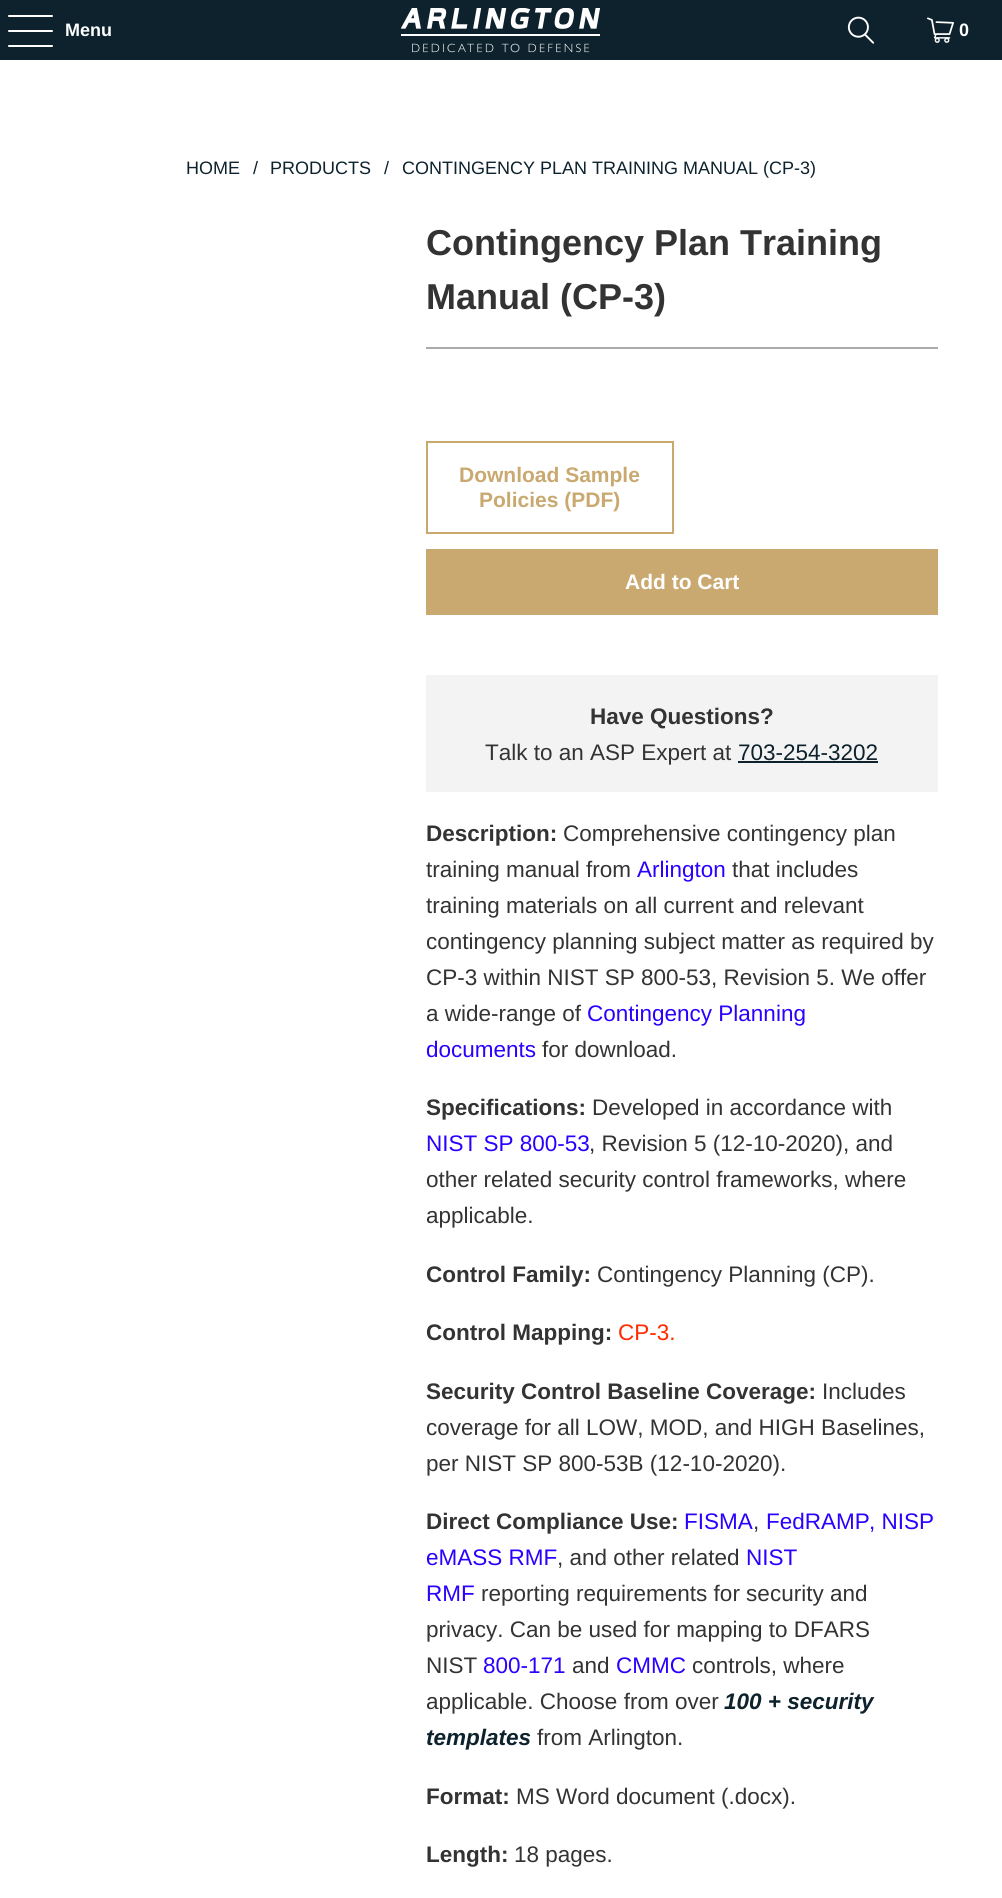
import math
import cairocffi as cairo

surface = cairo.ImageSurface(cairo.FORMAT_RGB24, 1002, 1898)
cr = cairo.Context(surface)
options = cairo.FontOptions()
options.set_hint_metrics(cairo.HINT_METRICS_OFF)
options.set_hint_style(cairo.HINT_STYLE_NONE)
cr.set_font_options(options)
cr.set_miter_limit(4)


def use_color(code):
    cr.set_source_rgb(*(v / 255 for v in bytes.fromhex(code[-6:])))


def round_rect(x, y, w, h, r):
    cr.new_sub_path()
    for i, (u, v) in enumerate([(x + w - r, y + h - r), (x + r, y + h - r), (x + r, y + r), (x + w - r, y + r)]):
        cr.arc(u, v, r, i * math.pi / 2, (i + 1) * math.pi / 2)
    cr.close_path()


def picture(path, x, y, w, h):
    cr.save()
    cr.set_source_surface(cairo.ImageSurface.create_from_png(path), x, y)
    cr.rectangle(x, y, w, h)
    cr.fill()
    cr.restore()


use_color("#ffffff")
cr.paint()
use_color("#0d222c")
cr.rectangle(0, 0, 1002, 60)
cr.fill()
use_color("#ffffff")
round_rect(8, 15, 45, 2, 1)
cr.fill()
round_rect(8, 30, 45, 2, 1)
cr.fill()
round_rect(8, 45, 45, 2, 1)
cr.fill()
cr.select_font_face("Liberation Sans", cairo.FONT_SLANT_NORMAL, cairo.FONT_WEIGHT_BOLD)
cr.set_font_size(18)
cr.move_to(65, 36)
cr.show_text("Menu")
picture("img1.png", 401, 8, 200, 45)
picture("img2.png", 847, 16, 28, 28)
picture("img3.png", 927, 17, 27, 26)
cr.move_to(959, 36)
cr.show_text("0")
cr.select_font_face("Liberation Sans")
use_color("#0d222c")
cr.move_to(186, 174)
cr.show_text("HOME")
cr.move_to(253, 174)
cr.show_text("/")
cr.move_to(270, 174)
cr.show_text("PRODUCTS")
cr.move_to(384, 174)
cr.show_text("/")
cr.move_to(402, 174)
cr.show_text("CONTINGENCY PLAN TRAINING MANUAL (CP-3)")
cr.select_font_face("Liberation Sans", cairo.FONT_SLANT_NORMAL, cairo.FONT_WEIGHT_BOLD)
cr.set_font_size(36)
use_color("#333333")
cr.move_to(426, 255)
cr.show_text("Contingency Plan Training")
cr.move_to(426, 309)
cr.show_text("Manual (CP-3)")
use_color("#aaaaaa")
cr.rectangle(426, 347, 512, 2)
cr.fill()
cr.rectangle(427, 442, 246, 91)
use_color("#c9a970")
cr.stroke()
cr.set_font_size(21)
cr.move_to(459, 482)
cr.show_text("Download Sample")
cr.move_to(479, 507)
cr.show_text("Policies (PDF)")
cr.rectangle(426, 549, 512, 66)
cr.fill()
use_color("#ffffff")
cr.move_to(625, 589)
cr.show_text("Add to Cart")
use_color("#f3f3f3")
cr.rectangle(426, 675, 512, 117)
cr.fill()
cr.set_font_size(22.5)
use_color("#333333")
cr.move_to(590, 724)
cr.show_text("Have Questions?")
cr.select_font_face("Liberation Sans")
cr.move_to(485, 760)
cr.show_text("Talk to an ASP Expert at")
use_color("#0d222c")
cr.move_to(738, 760)
cr.show_text("703-254-3202")
cr.rectangle(738, 761, 140, 2)
cr.fill()
cr.select_font_face("Liberation Sans", cairo.FONT_SLANT_NORMAL, cairo.FONT_WEIGHT_BOLD)
use_color("#333333")
cr.move_to(426, 841)
cr.show_text("Description:")
cr.select_font_face("Liberation Sans")
cr.move_to(563, 841)
cr.show_text("Comprehensive contingency plan")
cr.move_to(426, 877)
cr.show_text("training manual from")
use_color("#2b00ff")
cr.move_to(637, 877)
cr.show_text("Arlington")
use_color("#333333")
cr.move_to(732, 877)
cr.show_text("that includes")
cr.move_to(426, 913)
cr.show_text("training materials on all current and relevant")
cr.move_to(426, 949)
cr.show_text("contingency planning subject matter as required by")
cr.move_to(426, 985)
cr.show_text("CP-3 within NIST SP 800-53, Revision 5. We offer")
cr.move_to(426, 1021)
cr.show_text("a wide-range of")
use_color("#2b00ff")
cr.move_to(587, 1021)
cr.show_text("Contingency Planning")
cr.move_to(426, 1057)
cr.show_text("documents")
use_color("#333333")
cr.move_to(542, 1057)
cr.show_text("for download.")
cr.select_font_face("Liberation Sans", cairo.FONT_SLANT_NORMAL, cairo.FONT_WEIGHT_BOLD)
cr.move_to(426, 1115)
cr.show_text("Specifications:")
cr.select_font_face("Liberation Sans")
cr.move_to(592, 1115)
cr.show_text("Developed in accordance with")
use_color("#2b00ff")
cr.move_to(426, 1151)
cr.show_text("NIST SP 800-53")
use_color("#333333")
cr.move_to(589, 1151)
cr.show_text(", Revision 5 (12-10-2020), and")
cr.move_to(426, 1187)
cr.show_text("other related security control frameworks, where")
cr.move_to(426, 1223)
cr.show_text("applicable.")
cr.select_font_face("Liberation Sans", cairo.FONT_SLANT_NORMAL, cairo.FONT_WEIGHT_BOLD)
cr.move_to(426, 1282)
cr.show_text("Control Family:")
cr.select_font_face("Liberation Sans")
cr.move_to(597, 1282)
cr.show_text("Contingency Planning (CP).")
cr.select_font_face("Liberation Sans", cairo.FONT_SLANT_NORMAL, cairo.FONT_WEIGHT_BOLD)
cr.move_to(426, 1340)
cr.show_text("Control Mapping:")
cr.select_font_face("Liberation Sans")
use_color("#ff2a00")
cr.move_to(618, 1340)
cr.show_text("CP-3.")
cr.select_font_face("Liberation Sans", cairo.FONT_SLANT_NORMAL, cairo.FONT_WEIGHT_BOLD)
use_color("#333333")
cr.move_to(426, 1399)
cr.show_text("Security Control Baseline Coverage:")
cr.select_font_face("Liberation Sans")
cr.move_to(822, 1399)
cr.show_text("Includes")
cr.move_to(426, 1435)
cr.show_text("coverage for all LOW, MOD, and HIGH Baselines,")
cr.move_to(426, 1471)
cr.show_text("per NIST SP 800-53B (12-10-2020).")
cr.select_font_face("Liberation Sans", cairo.FONT_SLANT_NORMAL, cairo.FONT_WEIGHT_BOLD)
cr.move_to(426, 1529)
cr.show_text("Direct Compliance Use:")
cr.select_font_face("Liberation Sans")
use_color("#2b00ff")
cr.move_to(684, 1529)
cr.show_text("FISMA")
use_color("#333333")
cr.move_to(753, 1529)
cr.show_text(",")
use_color("#2b00ff")
cr.move_to(766, 1529)
cr.show_text("FedRAMP")
cr.move_to(869, 1529)
cr.show_text(", NISP")
cr.move_to(426, 1565)
cr.show_text("eMASS RMF")
use_color("#333333")
cr.move_to(557, 1565)
cr.show_text(", and other related")
use_color("#2b00ff")
cr.move_to(746, 1565)
cr.show_text("NIST")
cr.move_to(426, 1601)
cr.show_text("RMF")
use_color("#333333")
cr.move_to(481, 1601)
cr.show_text("reporting requirements for security and")
cr.move_to(426, 1637)
cr.show_text("privacy. Can be used for mapping to DFARS")
cr.move_to(426, 1673)
cr.show_text("NIST")
use_color("#2b00ff")
cr.move_to(483, 1673)
cr.show_text("800-171")
use_color("#333333")
cr.move_to(572, 1673)
cr.show_text("and")
use_color("#2b00ff")
cr.move_to(616, 1673)
cr.show_text("CMMC")
use_color("#333333")
cr.move_to(692, 1673)
cr.show_text("controls, where")
cr.move_to(426, 1709)
cr.show_text("applicable. Choose from over")
cr.select_font_face("Liberation Sans", cairo.FONT_SLANT_ITALIC, cairo.FONT_WEIGHT_BOLD)
use_color("#0d222c")
cr.move_to(724, 1709)
cr.show_text("100 + security")
cr.move_to(426, 1745)
cr.show_text("templates")
cr.select_font_face("Liberation Sans")
use_color("#333333")
cr.move_to(537, 1745)
cr.show_text("from Arlington.")
cr.select_font_face("Liberation Sans", cairo.FONT_SLANT_NORMAL, cairo.FONT_WEIGHT_BOLD)
cr.move_to(426, 1804)
cr.show_text("Format:")
cr.select_font_face("Liberation Sans")
cr.move_to(516, 1804)
cr.show_text("MS Word document (.docx).")
cr.select_font_face("Liberation Sans", cairo.FONT_SLANT_NORMAL, cairo.FONT_WEIGHT_BOLD)
cr.move_to(426, 1862)
cr.show_text("Length:")
cr.select_font_face("Liberation Sans")
cr.move_to(514, 1862)
cr.show_text("18 pages.")
surface.write_to_png("result.png")
